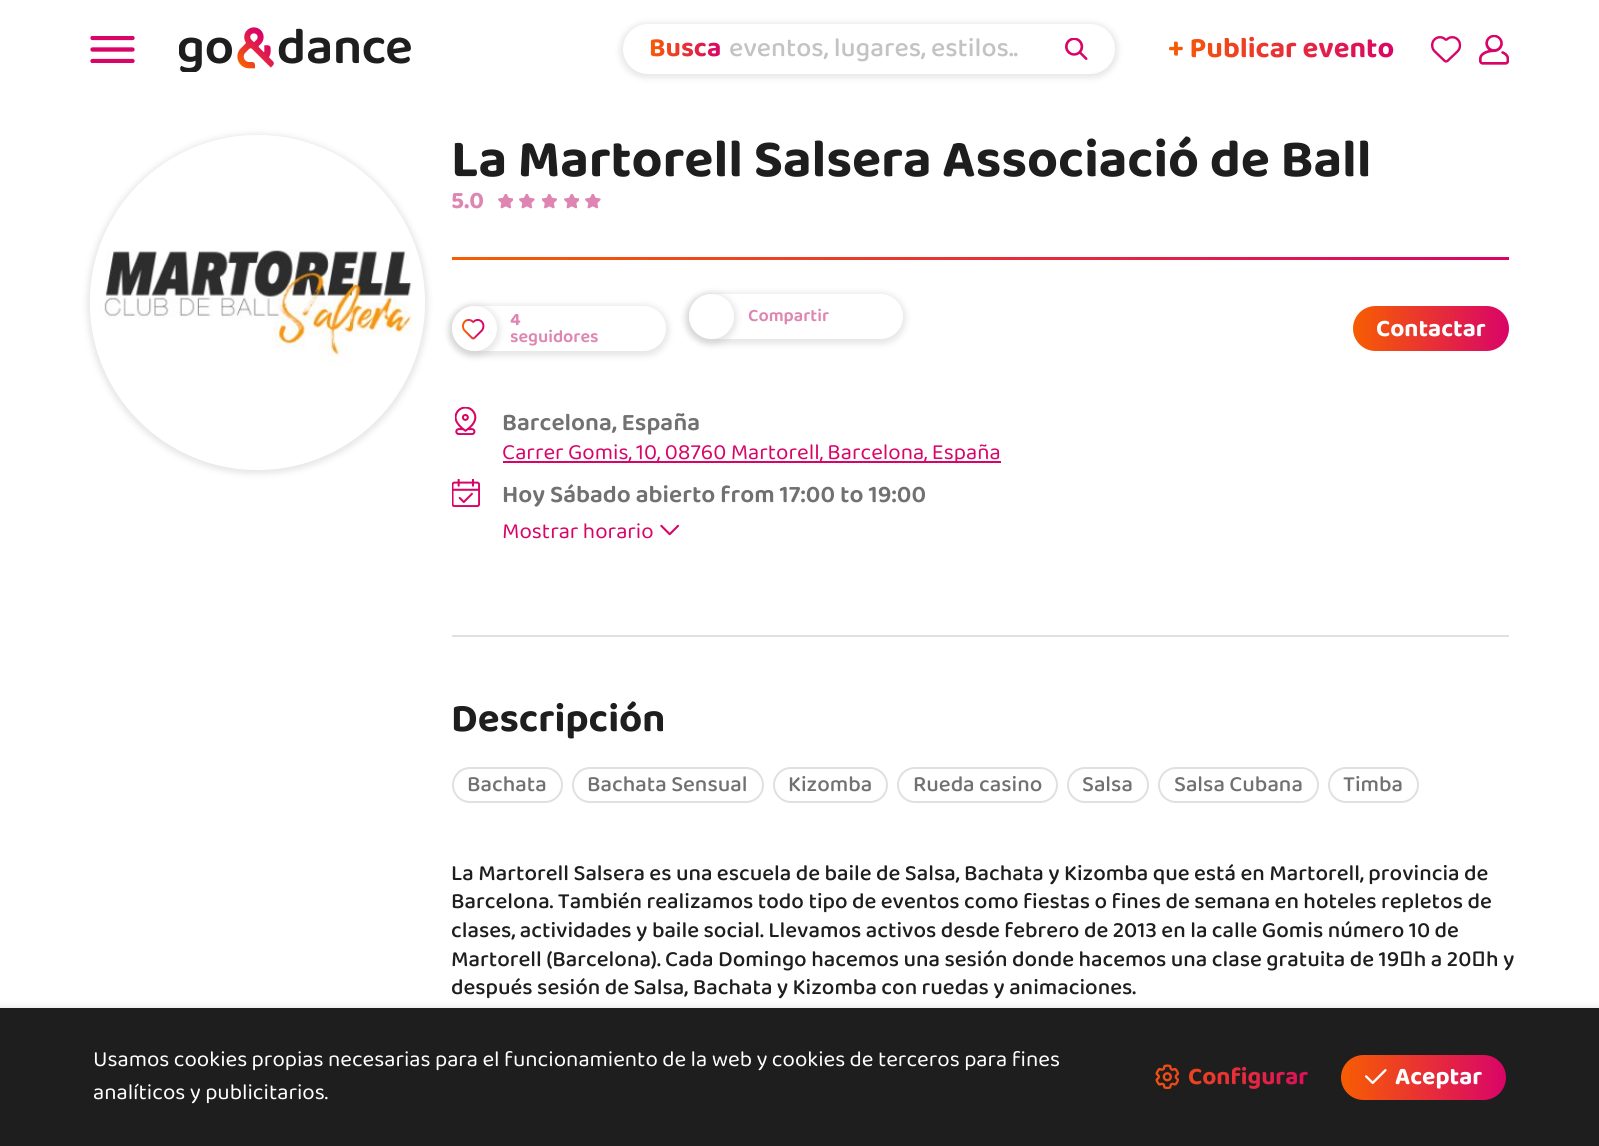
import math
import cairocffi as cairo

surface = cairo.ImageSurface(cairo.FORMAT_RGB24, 1599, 1146)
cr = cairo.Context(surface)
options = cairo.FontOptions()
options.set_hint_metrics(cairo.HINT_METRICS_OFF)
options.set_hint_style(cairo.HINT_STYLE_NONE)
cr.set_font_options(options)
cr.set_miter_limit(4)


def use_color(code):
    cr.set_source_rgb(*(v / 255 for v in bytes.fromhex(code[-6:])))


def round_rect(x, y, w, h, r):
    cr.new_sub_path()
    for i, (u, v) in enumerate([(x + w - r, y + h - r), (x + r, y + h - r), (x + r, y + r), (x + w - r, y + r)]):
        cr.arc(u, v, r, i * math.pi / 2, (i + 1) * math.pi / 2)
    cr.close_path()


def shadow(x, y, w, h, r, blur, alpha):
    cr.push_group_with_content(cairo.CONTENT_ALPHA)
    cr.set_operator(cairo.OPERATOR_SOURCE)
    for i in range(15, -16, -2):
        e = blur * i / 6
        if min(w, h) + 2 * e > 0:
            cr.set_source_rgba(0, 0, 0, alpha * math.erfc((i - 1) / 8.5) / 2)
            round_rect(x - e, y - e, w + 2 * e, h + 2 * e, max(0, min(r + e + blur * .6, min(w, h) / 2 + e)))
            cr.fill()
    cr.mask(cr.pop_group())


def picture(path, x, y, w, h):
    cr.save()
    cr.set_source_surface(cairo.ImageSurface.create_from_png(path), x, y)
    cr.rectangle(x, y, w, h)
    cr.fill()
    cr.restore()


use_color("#ffffff")
cr.paint()
cr.save()
cr.rectangle(90, 36, 45, 27)
cr.clip()
cr.new_path()
cr.move_to(92.5, 38)
cr.line_to(132.5, 38)
cr.move_to(92.5, 49.5)
cr.line_to(132.5, 49.5)
cr.move_to(92.5, 61)
cr.line_to(132.5, 61)
use_color("#d90468")
cr.set_line_width(4.3)
cr.set_line_cap(cairo.LINE_CAP_ROUND)
cr.stroke()
cr.restore()
picture("img1.png", 179, 27, 232, 45)
use_color("#9e9e9e")
shadow(620, 23, 498, 55, 27.5, 3, 0.25)
use_color("#ffffff")
round_rect(623, 24, 492, 50, 25)
cr.fill()
cr.select_font_face("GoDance", cairo.FONT_SLANT_NORMAL, cairo.FONT_WEIGHT_BOLD)
cr.set_font_size(26.9)
gradient = cairo.LinearGradient(649, 49, 721, 49)
gradient.add_color_stop_rgba(0, 0.969, 0.365, 0.008, 1)
gradient.add_color_stop_rgba(1, 0.851, 0.016, 0.408, 1)
cr.set_source(gradient)
cr.move_to(649, 56)
cr.show_text("Busca")
cr.select_font_face("Baloo Thambi 2 Medium")
use_color("#c3c3c3")
cr.move_to(729, 56)
cr.show_text("eventos, lugares, estilos..")
picture("img2.png", 1065, 38, 23, 22)
cr.select_font_face("GoDance", cairo.FONT_SLANT_NORMAL, cairo.FONT_WEIGHT_BOLD)
cr.set_font_size(29)
gradient = cairo.LinearGradient(1168, 49, 1395, 49)
gradient.add_color_stop_rgba(0, 0.969, 0.365, 0.008, 1)
gradient.add_color_stop_rgba(1, 0.851, 0.016, 0.408, 1)
cr.set_source(gradient)
cr.move_to(1168, 57)
cr.show_text("+ Publicar evento")
picture("img3.png", 1431, 36, 30, 27)
picture("img4.png", 1479, 35, 30, 30)
cr.save()
cr.set_fill_rule(cairo.FILL_RULE_EVEN_ODD)
cr.new_path()
cr.move_to(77, 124)
cr.line_to(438, 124)
cr.line_to(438, 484)
cr.line_to(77, 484)
cr.close_path()
cr.move_to(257.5, 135)
cr.curve_to(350, 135, 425, 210, 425, 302.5)
cr.curve_to(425, 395, 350, 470, 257.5, 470)
cr.curve_to(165, 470, 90, 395, 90, 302.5)
cr.curve_to(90, 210, 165, 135, 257.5, 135)
cr.close_path()
cr.clip()
use_color("#9e9e9e")
shadow(87, 134, 341, 340, 170, 3, 0.25)
cr.restore()
picture("img5.png", 90, 183, 334, 286)
cr.set_font_size(53.75)
use_color("#1e1e1e")
cr.move_to(451, 176)
cr.show_text("La Martorell Salsera Associació de Ball")
cr.set_font_size(24.6)
use_color("#de86b1")
cr.move_to(451, 208)
cr.show_text("5.0")
picture("img6.png", 498, 194, 15, 15)
picture("img7.png", 519, 194, 16, 15)
picture("img8.png", 542, 194, 15, 15)
picture("img6.png", 564, 194, 15, 15)
picture("img7.png", 585, 194, 16, 15)
gradient = cairo.LinearGradient(452, 258, 1509, 258)
gradient.add_color_stop_rgba(0, 0.969, 0.365, 0.008, 1)
gradient.add_color_stop_rgba(1, 0.851, 0.016, 0.408, 1)
cr.set_source(gradient)
cr.rectangle(452, 257, 1057, 3)
cr.fill()
use_color("#9e9e9e")
shadow(449, 305, 220, 51, 25.5, 3, 0.25)
use_color("#ffffff")
round_rect(452, 306, 214, 45, 22.5)
cr.fill()
use_color("#9e9e9e")
shadow(449, 305, 51, 51, 25.5, 3, 0.25)
use_color("#ffffff")
cr.arc(474.5, 328.5, 22.5, 0, 2 * math.pi)
cr.fill()
picture("img9.png", 462, 319, 23, 21)
cr.set_font_size(18)
use_color("#de86b1")
cr.move_to(510, 325)
cr.show_text("4")
cr.select_font_face("Baloo Thambi 2 SemiBold")
cr.move_to(510, 342)
cr.show_text("seguidores")
use_color("#9e9e9e")
shadow(686, 293, 220, 51, 25.5, 3, 0.25)
use_color("#ffffff")
round_rect(689, 294, 214, 45, 22.5)
cr.fill()
use_color("#9e9e9e")
shadow(686, 293, 51, 51, 25.5, 3, 0.25)
use_color("#ffffff")
cr.arc(711.5, 316.5, 22.5, 0, 2 * math.pi)
cr.fill()
use_color("#de86b1")
cr.move_to(748, 321)
cr.show_text("Compartir")
gradient = cairo.LinearGradient(1353, 329, 1509, 329)
gradient.add_color_stop_rgba(0, 0.969, 0.365, 0.008, 1)
gradient.add_color_stop_rgba(1, 0.851, 0.016, 0.408, 1)
cr.set_source(gradient)
round_rect(1353, 306, 156, 45, 22.5)
cr.fill()
cr.select_font_face("GoDance", cairo.FONT_SLANT_NORMAL, cairo.FONT_WEIGHT_BOLD)
cr.set_font_size(24.6)
use_color("#ffffff")
cr.move_to(1376, 336)
cr.show_text("Contactar")
picture("img10.png", 455, 407, 22, 28)
cr.select_font_face("Baloo Thambi 2 SemiBold")
use_color("#717171")
cr.move_to(502, 430)
cr.show_text("Barcelona, España")
use_color("#d90468")
cr.rectangle(503, 461, 498, 2)
cr.fill()
cr.select_font_face("GoDance")
cr.set_font_size(22.4)
cr.move_to(502, 459)
cr.show_text("Carrer Gomis, 10, 08760 Martorell, Barcelona, España")
picture("img11.png", 452, 479, 28, 28)
cr.select_font_face("Baloo Thambi 2 SemiBold")
cr.set_font_size(24.6)
use_color("#717171")
cr.move_to(502, 502)
cr.show_text("Hoy Sábado abierto from 17:00 to 19:00")
cr.select_font_face("GoDance")
cr.set_font_size(22.4)
use_color("#d90468")
cr.move_to(502, 538)
cr.show_text("Mostrar horario")
picture("img12.png", 660, 524, 20, 12)
use_color("#e0e0e0")
cr.rectangle(452, 635, 1057, 2)
cr.fill()
cr.select_font_face("GoDance", cairo.FONT_SLANT_NORMAL, cairo.FONT_WEIGHT_BOLD)
cr.set_font_size(40.25)
use_color("#1e1e1e")
cr.move_to(451, 731)
cr.show_text("Descripción")
round_rect(453, 768, 109, 34, 17)
use_color("#e0e0e0")
cr.stroke()
cr.select_font_face("Baloo Thambi 2 Medium")
cr.set_font_size(22.4)
use_color("#717171")
cr.move_to(467, 791)
cr.show_text("Bachata")
round_rect(573, 768, 190, 34, 17)
use_color("#e0e0e0")
cr.stroke()
use_color("#717171")
cr.move_to(587, 791)
cr.show_text("Bachata Sensual")
round_rect(774, 768, 113, 34, 17)
use_color("#e0e0e0")
cr.stroke()
use_color("#717171")
cr.move_to(788, 791)
cr.show_text("Kizomba")
round_rect(898, 768, 159, 34, 17)
use_color("#e0e0e0")
cr.stroke()
use_color("#717171")
cr.move_to(913, 791)
cr.show_text("Rueda casino")
round_rect(1068, 768, 80, 34, 17)
use_color("#e0e0e0")
cr.stroke()
use_color("#717171")
cr.move_to(1082, 791)
cr.show_text("Salsa")
round_rect(1159, 768, 159, 34, 17)
use_color("#e0e0e0")
cr.stroke()
use_color("#717171")
cr.move_to(1174, 791)
cr.show_text("Salsa Cubana")
round_rect(1329, 768, 89, 34, 17)
use_color("#e0e0e0")
cr.stroke()
use_color("#717171")
cr.move_to(1343, 791)
cr.show_text("Timba")
use_color("#1e1e1e")
cr.move_to(451, 880)
cr.show_text("La Martorell Salsera es una escuela de baile de Salsa, Bachata y Kizomba que está en Martorell, provincia de")
cr.move_to(451, 908)
cr.show_text("Barcelona. También realizamos todo tipo de eventos como fiestas o fines de semana en hoteles repletos de")
cr.move_to(451, 937)
cr.show_text("clases, actividades y baile social. Llevamos activos desde febrero de 2013 en la calle Gomis número 10 de")
cr.move_to(451, 966)
cr.show_text("Martorell (Barcelona). Cada Domingo hacemos una sesión donde hacemos una clase gratuita de 19 h a 20 h y")
cr.move_to(451, 994)
cr.show_text("después sesión de Salsa, Bachata y Kizomba con ruedas y animaciones.")
use_color("#9e9e9e")
shadow(-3, 1007, 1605, 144, 0, 3, 0.25)
use_color("#1e1e1e")
cr.rectangle(0, 1008, 1599, 138)
cr.fill()
cr.select_font_face("GoDance")
use_color("#ffffff")
cr.move_to(93, 1066)
cr.show_text("Usamos cookies propias necesarias para el funcionamiento de la web y cookies de terceros para fines")
cr.move_to(93, 1099)
cr.show_text("analíticos y publicitarios.")
picture("img13.png", 1155, 1064, 25, 26)
cr.select_font_face("GoDance", cairo.FONT_SLANT_NORMAL, cairo.FONT_WEIGHT_BOLD)
cr.set_font_size(24.6)
gradient = cairo.LinearGradient(1131, 1077, 1332, 1077)
gradient.add_color_stop_rgba(0, 0.969, 0.365, 0.008, 1)
gradient.add_color_stop_rgba(1, 0.851, 0.016, 0.408, 1)
cr.set_source(gradient)
cr.move_to(1188, 1084)
cr.show_text("Configurar")
gradient = cairo.LinearGradient(1341, 1077, 1506, 1077)
gradient.add_color_stop_rgba(0, 0.969, 0.365, 0.008, 1)
gradient.add_color_stop_rgba(1, 0.851, 0.016, 0.408, 1)
cr.set_source(gradient)
round_rect(1341, 1055, 165, 45, 22.5)
cr.fill()
picture("img14.png", 1365, 1069, 22, 16)
use_color("#ffffff")
cr.move_to(1395, 1084)
cr.show_text("Aceptar")
surface.write_to_png("result.png")
